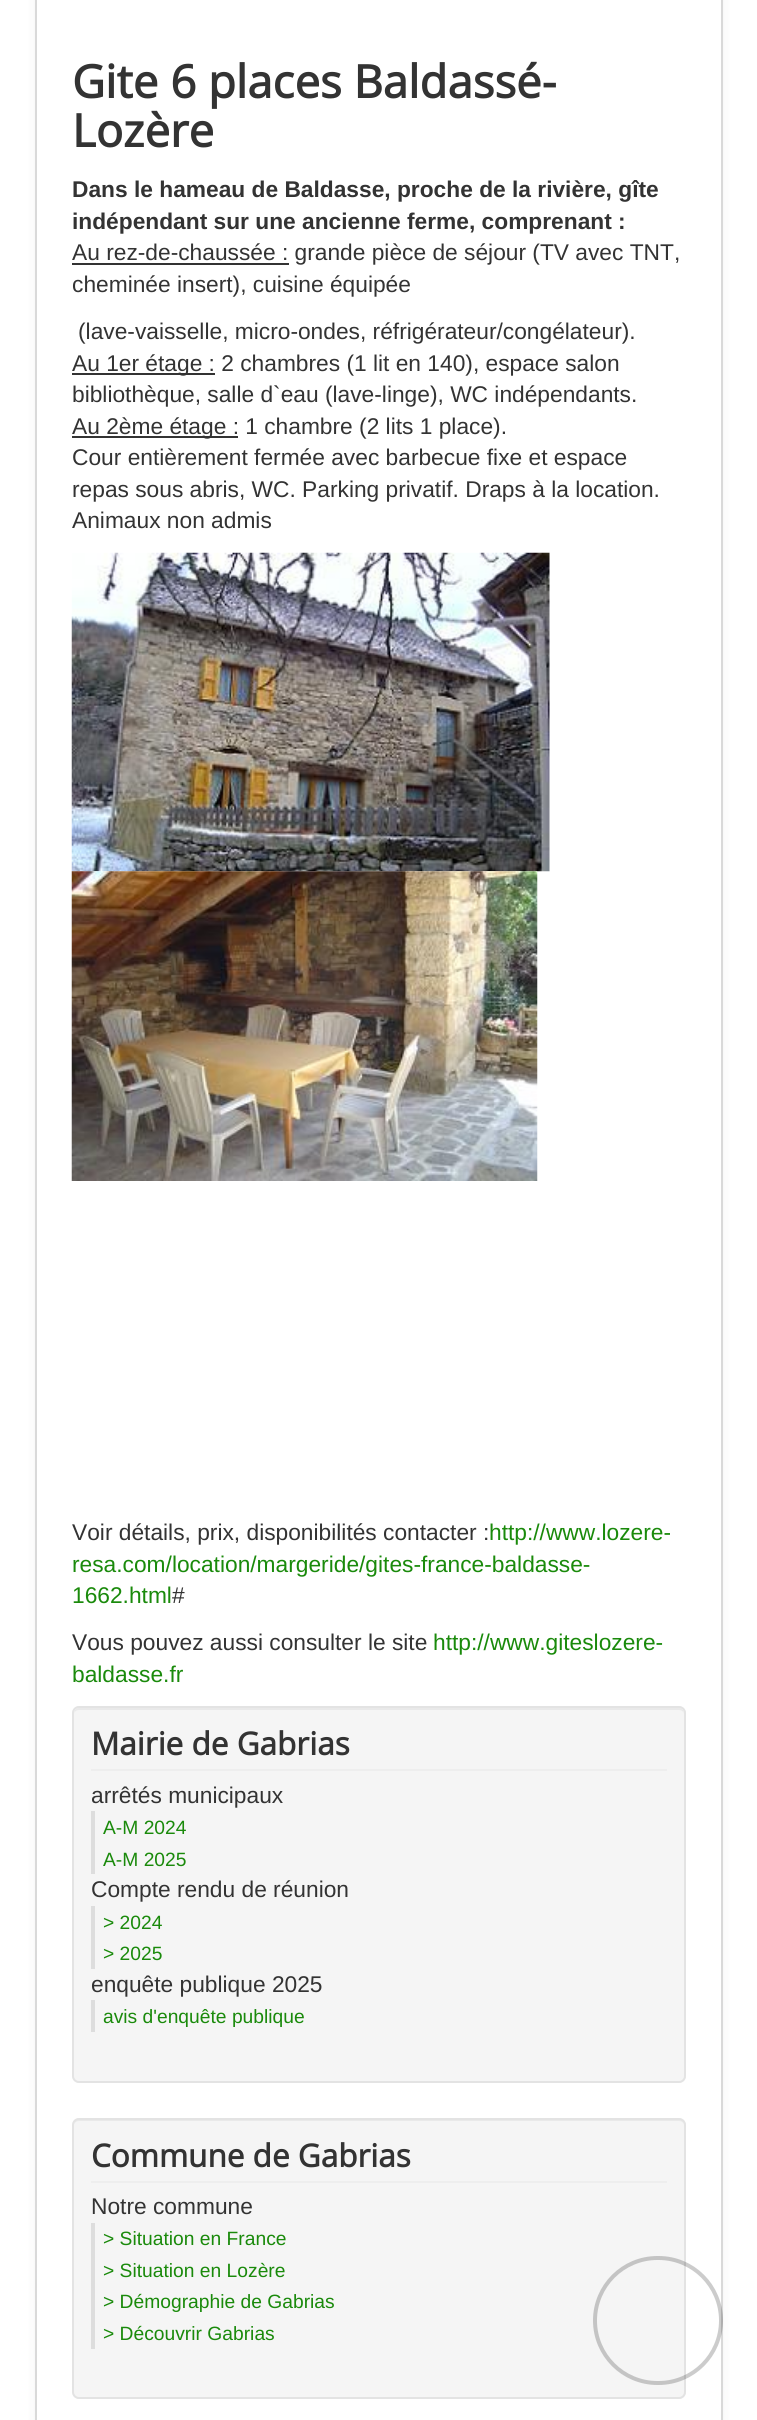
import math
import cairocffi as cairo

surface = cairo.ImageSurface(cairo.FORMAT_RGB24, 757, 2420)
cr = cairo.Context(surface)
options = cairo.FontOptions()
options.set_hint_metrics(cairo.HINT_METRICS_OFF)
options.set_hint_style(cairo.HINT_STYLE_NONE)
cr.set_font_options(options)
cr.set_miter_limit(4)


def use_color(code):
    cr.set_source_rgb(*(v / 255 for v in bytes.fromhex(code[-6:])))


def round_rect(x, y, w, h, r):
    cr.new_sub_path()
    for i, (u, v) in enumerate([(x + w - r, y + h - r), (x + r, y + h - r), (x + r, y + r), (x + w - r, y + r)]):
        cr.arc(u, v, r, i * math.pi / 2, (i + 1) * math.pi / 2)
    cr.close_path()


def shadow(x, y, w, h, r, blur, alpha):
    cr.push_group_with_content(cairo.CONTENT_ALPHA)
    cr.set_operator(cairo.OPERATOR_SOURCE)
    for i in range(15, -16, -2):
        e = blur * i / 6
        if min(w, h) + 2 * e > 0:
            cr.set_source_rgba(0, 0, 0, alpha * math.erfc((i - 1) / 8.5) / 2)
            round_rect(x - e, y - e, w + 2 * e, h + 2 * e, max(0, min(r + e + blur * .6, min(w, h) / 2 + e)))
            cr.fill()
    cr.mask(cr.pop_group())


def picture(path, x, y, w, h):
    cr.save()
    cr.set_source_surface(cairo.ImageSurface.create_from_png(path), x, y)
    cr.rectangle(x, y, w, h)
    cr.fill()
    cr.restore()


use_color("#ffffff")
cr.paint()
use_color("#000000")
shadow(35, -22, 688, 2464, 7, 5, 0.05)
use_color("#ffffff")
cr.rectangle(36, -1, 686, 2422)
cr.fill_preserve()
use_color("#d9d9d9")
cr.stroke()
cr.select_font_face("Open Sans", cairo.FONT_SLANT_NORMAL, cairo.FONT_WEIGHT_BOLD)
cr.set_font_size(45.5)
use_color("#333333")
cr.move_to(72, 98)
cr.show_text("Gite 6 places Baldassé-")
cr.move_to(72, 147)
cr.show_text("Lozère")
cr.select_font_face("Liberation Sans", cairo.FONT_SLANT_NORMAL, cairo.FONT_WEIGHT_BOLD)
cr.set_font_size(22.75)
cr.move_to(72, 197)
cr.show_text("Dans le hameau de Baldasse, proche de la rivière, gîte")
cr.move_to(72, 229)
cr.show_text("indépendant sur une ancienne ferme, comprenant :")
cr.rectangle(72, 263, 217, 2)
cr.fill()
cr.select_font_face("Liberation Sans")
cr.move_to(72, 260)
cr.show_text("Au rez-de-chaussée : grande pièce de séjour (TV avec TNT,")
cr.move_to(72, 292)
cr.show_text("cheminée insert), cuisine équipée")
cr.move_to(78, 339)
cr.show_text("(lave-vaisselle, micro-ondes, réfrigérateur/congélateur).")
cr.rectangle(72, 373, 143, 2)
cr.fill()
cr.move_to(72, 371)
cr.show_text("Au 1er étage : 2 chambres (1 lit en 140), espace salon")
cr.move_to(72, 402)
cr.show_text("bibliothèque, salle d`eau (lave-linge), WC indépendants.")
cr.rectangle(72, 436, 166, 2)
cr.fill()
cr.move_to(72, 434)
cr.show_text("Au 2ème étage : 1 chambre (2 lits 1 place).")
cr.move_to(72, 465)
cr.show_text("Cour entièrement fermée avec barbecue fixe et espace")
cr.move_to(72, 497)
cr.show_text("repas sous abris, WC. Parking privatif. Draps à la location.")
cr.move_to(72, 528)
cr.show_text("Animaux non admis")
picture("img1.png", 71, 552, 479, 320)
picture("img2.png", 71, 871, 467, 310)
cr.move_to(72, 1540)
cr.show_text("Voir détails, prix, disponibilités contacter :")
use_color("#1a8a0b")
cr.move_to(489, 1540)
cr.show_text("http://www.lozere-")
cr.move_to(72, 1572)
cr.show_text("resa.com/location/margeride/gites-france-baldasse-")
cr.move_to(72, 1603)
cr.show_text("1662.html")
use_color("#333333")
cr.move_to(172, 1603)
cr.show_text("#")
cr.move_to(72, 1650)
cr.show_text("Vous pouvez aussi consulter le site")
use_color("#1a8a0b")
cr.move_to(433, 1650)
cr.show_text("http://www.giteslozere-")
cr.move_to(72, 1682)
cr.show_text("baldasse.fr")
use_color("#f5f5f5")
round_rect(72, 1706, 614, 377, 7)
cr.fill()
use_color("#e9e9e9")
cr.new_path()
cr.move_to(79, 1710)
cr.line_to(679, 1710)
cr.curve_to(682, 1710, 684, 1712, 684, 1715)
cr.curve_to(684, 1712, 683, 1708, 679, 1708)
cr.line_to(79, 1708)
cr.curve_to(75, 1708, 74, 1712, 74, 1715)
cr.curve_to(74, 1712, 76, 1710, 79, 1710)
cr.close_path()
cr.fill()
round_rect(73, 1707, 612, 375, 6)
use_color("#e3e3e3")
cr.stroke()
use_color("#eeeeee")
cr.rectangle(91, 1769, 576, 2)
cr.fill()
cr.select_font_face("Open Sans", cairo.FONT_SLANT_NORMAL, cairo.FONT_WEIGHT_BOLD)
cr.set_font_size(31.5)
use_color("#333333")
cr.move_to(91, 1755)
cr.show_text("Mairie de Gabrias")
cr.select_font_face("Liberation Sans")
cr.set_font_size(22.75)
cr.move_to(91, 1803)
cr.show_text("arrêtés municipaux")
use_color("#dddddd")
cr.rectangle(91, 1811, 4, 63)
cr.fill()
cr.set_font_size(19.25)
use_color("#1a8a0b")
cr.move_to(103, 1834)
cr.show_text("A-M 2024")
cr.move_to(103, 1866)
cr.show_text("A-M 2025")
cr.set_font_size(22.75)
use_color("#333333")
cr.move_to(91, 1897)
cr.show_text("Compte rendu de réunion")
use_color("#dddddd")
cr.rectangle(91, 1906, 4, 63)
cr.fill()
cr.set_font_size(19.25)
use_color("#1a8a0b")
cr.move_to(103, 1929)
cr.show_text("> 2024")
cr.move_to(103, 1960)
cr.show_text("> 2025")
cr.set_font_size(22.75)
use_color("#333333")
cr.move_to(91, 1992)
cr.show_text("enquête publique 2025")
use_color("#dddddd")
cr.rectangle(91, 2000, 4, 32)
cr.fill()
cr.set_font_size(19.25)
use_color("#1a8a0b")
cr.move_to(103, 2023)
cr.show_text("avis d'enquête publique")
use_color("#f5f5f5")
round_rect(72, 2118, 614, 281, 7)
cr.fill()
use_color("#e9e9e9")
cr.new_path()
cr.move_to(79, 2121)
cr.line_to(679, 2121)
cr.curve_to(682, 2121, 684, 2123, 684, 2126)
cr.curve_to(684, 2123, 683, 2119, 679, 2119)
cr.line_to(79, 2119)
cr.curve_to(75, 2119, 74, 2123, 74, 2126)
cr.curve_to(74, 2123, 76, 2121, 79, 2121)
cr.close_path()
cr.fill()
round_rect(73, 2119, 612, 279, 6)
use_color("#e3e3e3")
cr.stroke()
use_color("#eeeeee")
cr.rectangle(91, 2181, 576, 2)
cr.fill()
cr.select_font_face("Open Sans", cairo.FONT_SLANT_NORMAL, cairo.FONT_WEIGHT_BOLD)
cr.set_font_size(31.5)
use_color("#333333")
cr.move_to(91, 2167)
cr.show_text("Commune de Gabrias")
cr.select_font_face("Liberation Sans")
cr.set_font_size(22.75)
cr.move_to(91, 2214)
cr.show_text("Notre commune")
use_color("#dddddd")
cr.rectangle(91, 2223, 4, 126)
cr.fill()
cr.set_font_size(19.25)
use_color("#1a8a0b")
cr.move_to(103, 2245)
cr.show_text("> Situation en France")
cr.move_to(103, 2277)
cr.show_text("> Situation en Lozère")
cr.move_to(103, 2308)
cr.show_text("> Démographie de Gabrias")
cr.move_to(103, 2340)
cr.show_text("> Découvrir Gabrias")
round_rect(595, 2258, 126, 125, 62.5)
cr.set_source_rgba(0, 0, 0, 0.2)
cr.set_line_width(4)
cr.stroke()
surface.write_to_png("result.png")
